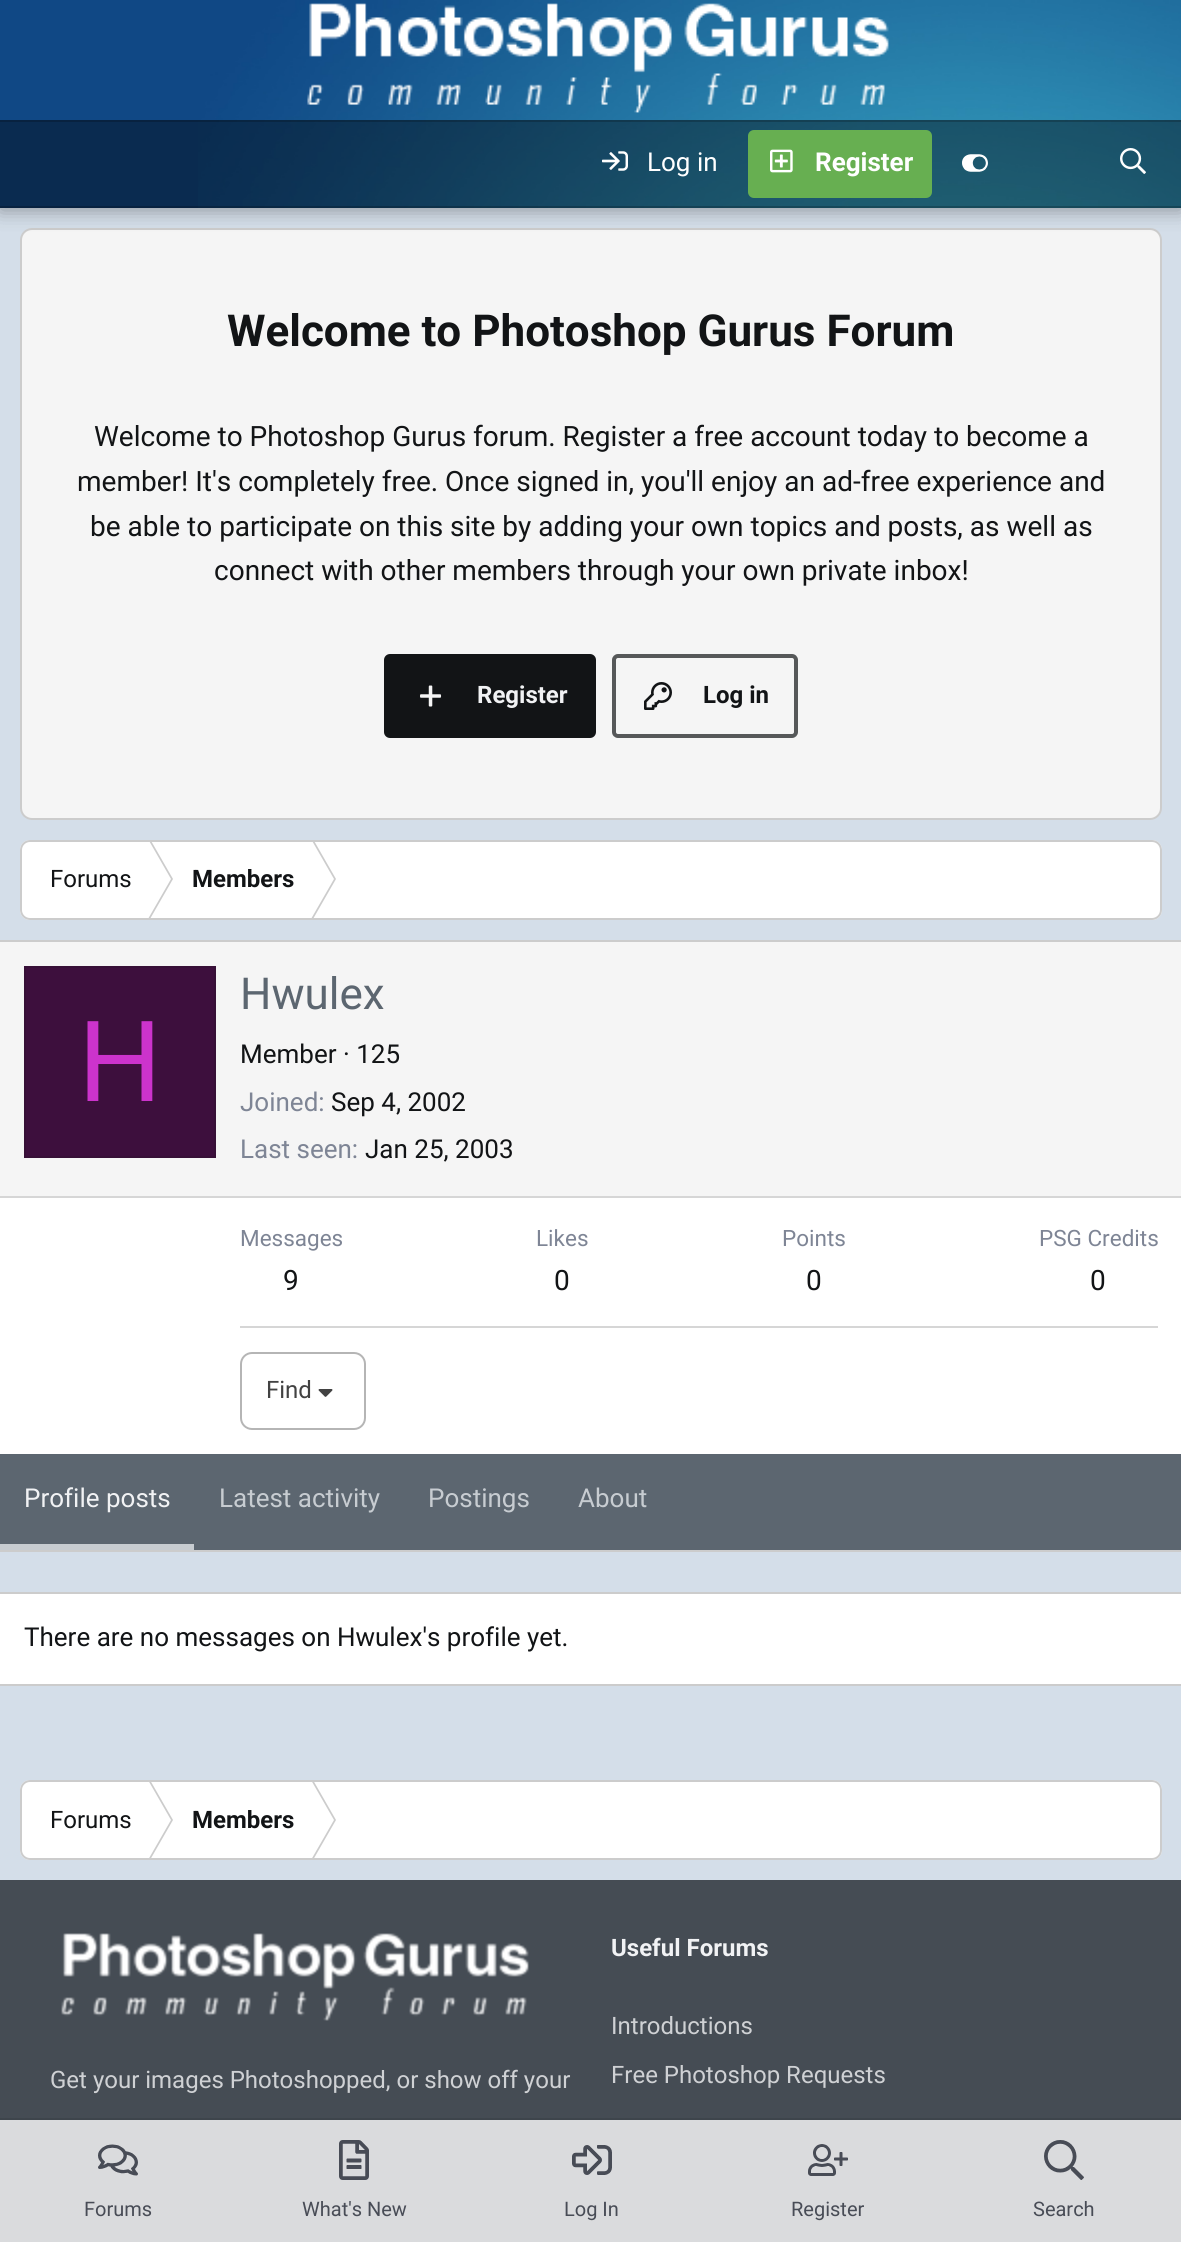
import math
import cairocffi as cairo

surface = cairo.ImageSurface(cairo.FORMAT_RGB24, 1181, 2242)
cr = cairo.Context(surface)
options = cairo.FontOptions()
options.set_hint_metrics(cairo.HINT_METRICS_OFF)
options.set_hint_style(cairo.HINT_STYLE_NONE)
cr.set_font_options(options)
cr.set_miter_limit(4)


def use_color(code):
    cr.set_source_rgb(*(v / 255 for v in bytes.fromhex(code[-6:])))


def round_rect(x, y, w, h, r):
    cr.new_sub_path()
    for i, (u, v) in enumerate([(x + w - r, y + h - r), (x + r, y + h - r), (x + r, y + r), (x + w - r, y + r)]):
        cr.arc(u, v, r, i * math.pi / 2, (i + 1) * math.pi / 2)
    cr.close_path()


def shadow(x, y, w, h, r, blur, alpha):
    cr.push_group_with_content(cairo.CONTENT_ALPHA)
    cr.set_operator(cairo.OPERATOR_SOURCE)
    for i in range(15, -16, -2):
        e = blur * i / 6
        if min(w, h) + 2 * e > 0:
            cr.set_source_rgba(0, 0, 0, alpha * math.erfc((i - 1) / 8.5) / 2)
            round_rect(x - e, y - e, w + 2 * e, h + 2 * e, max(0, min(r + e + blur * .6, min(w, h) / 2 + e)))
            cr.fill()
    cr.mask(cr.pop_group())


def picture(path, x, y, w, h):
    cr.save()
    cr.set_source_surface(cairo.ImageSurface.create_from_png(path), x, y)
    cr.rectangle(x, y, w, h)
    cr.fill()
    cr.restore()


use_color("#d4dee9")
cr.paint()
use_color("#f5f5f5")
round_rect(21, 229, 1140, 590, 11)
cr.fill_preserve()
use_color("#cccccc")
cr.stroke()
use_color("#000000")
shadow(0, 2, 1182, 208, 0, 10, 0.35)
use_color("#104885")
cr.rectangle(0, 0, 198, 208)
cr.fill()
picture("img1.png", 198, 0, 983, 208)
picture("img2.png", 307, 3, 582, 110)
cr.set_source_rgba(0, 0, 0, 0.4)
cr.rectangle(0, 120, 1181, 88)
cr.fill()
cr.set_source_rgba(0, 0, 0, 0.2)
cr.rectangle(0, 120, 1181, 2)
cr.fill()
cr.rectangle(0, 206, 1181, 2)
cr.fill()
picture("img3.png", 602, 151, 26, 20)
cr.select_font_face("Roboto")
cr.set_font_size(26)
use_color("#ffffff")
cr.move_to(647, 171)
cr.show_text("Log in")
use_color("#67af51")
round_rect(748, 130, 184, 68, 6)
cr.fill()
picture("img4.png", 770, 149, 23, 24)
cr.select_font_face("Roboto", cairo.FONT_SLANT_NORMAL, cairo.FONT_WEIGHT_BOLD)
use_color("#ffffff")
cr.move_to(815, 171)
cr.show_text("Register")
picture("img5.png", 962, 154, 26, 18)
picture("img6.png", 1120, 148, 26, 26)
cr.set_font_size(44)
use_color("#121416")
cr.move_to(227, 346)
cr.show_text("Welcome to Photoshop Gurus Forum")
cr.select_font_face("Roboto")
cr.set_font_size(28)
cr.move_to(94, 446)
cr.show_text("Welcome to Photoshop Gurus forum. Register a free account today to become a")
cr.move_to(77, 491)
cr.show_text("member! It's completely free. Once signed in, you'll enjoy an ad-free experience and")
cr.move_to(90, 536)
cr.show_text("be able to participate on this site by adding your own topics and posts, as well as")
cr.move_to(214, 580)
cr.show_text("connect with other members through your own private inbox!")
round_rect(384, 654, 212, 84, 6)
cr.fill()
picture("img7.png", 420, 685, 22, 22)
cr.select_font_face("Roboto", cairo.FONT_SLANT_NORMAL, cairo.FONT_WEIGHT_BOLD)
cr.set_font_size(24)
use_color("#f1f2f4")
cr.move_to(477, 703)
cr.show_text("Register")
round_rect(614, 656, 182, 80, 4)
use_color("#565859")
cr.set_line_width(4)
cr.stroke()
picture("img8.png", 644, 682, 28, 28)
use_color("#121416")
cr.move_to(703, 703)
cr.show_text("Log in")
use_color("#ffffff")
round_rect(20, 840, 1142, 80, 10)
cr.fill()
cr.save()
cr.rectangle(20, 840, 1142, 80)
cr.clip()
use_color("#cccccc")
cr.new_path()
cr.move_to(148, 839)
cr.line_to(150, 839)
cr.line_to(173, 879)
cr.line_to(171, 879)
cr.close_path()
cr.fill()
cr.restore()
use_color("#cccccc")
cr.new_path()
cr.move_to(171, 879)
cr.line_to(173, 879)
cr.line_to(150, 919)
cr.line_to(148, 919)
cr.close_path()
cr.fill()
cr.save()
cr.rectangle(20, 840, 1142, 80)
cr.clip()
cr.new_path()
cr.move_to(311, 839)
cr.line_to(313, 839)
cr.line_to(336, 879)
cr.line_to(334, 879)
cr.close_path()
cr.fill()
cr.restore()
cr.new_path()
cr.move_to(334, 879)
cr.line_to(336, 879)
cr.line_to(313, 919)
cr.line_to(311, 919)
cr.close_path()
cr.fill()
round_rect(21, 841, 1140, 78, 9)
cr.set_line_width(2)
cr.stroke()
cr.select_font_face("Roboto")
use_color("#121416")
cr.move_to(50, 887)
cr.show_text("Forums")
cr.select_font_face("Roboto", cairo.FONT_SLANT_NORMAL, cairo.FONT_WEIGHT_BOLD)
cr.move_to(192, 887)
cr.show_text("Members")
use_color("#ffffff")
cr.rectangle(0, 1198, 1181, 256)
cr.fill()
use_color("#cccccc")
cr.rectangle(0, 940, 1181, 2)
cr.fill()
cr.rectangle(0, 1550, 1181, 2)
cr.fill()
use_color("#f5f5f5")
cr.rectangle(0, 942, 1181, 254)
cr.fill()
use_color("#d6d6d6")
cr.rectangle(0, 1196, 1181, 2)
cr.fill()
use_color("#3d0f3d")
cr.rectangle(26, 968, 188, 188)
cr.fill()
cr.rectangle(25, 967, 190, 190)
use_color("#371037")
cr.stroke()
cr.select_font_face("Liberation Sans")
cr.set_font_size(116)
use_color("#cc33cc")
cr.move_to(78, 1101)
cr.show_text("H")
cr.select_font_face("Roboto")
cr.set_font_size(44)
use_color("#5c6670")
cr.move_to(240, 1009)
cr.show_text("Hwulex")
cr.set_font_size(26)
use_color("#121416")
cr.move_to(240, 1063)
cr.show_text("Member · 125")
use_color("#7e8595")
cr.move_to(240, 1111)
cr.show_text("Joined:")
use_color("#121416")
cr.move_to(331, 1111)
cr.show_text("Sep 4, 2002")
use_color("#7e8595")
cr.move_to(240, 1158)
cr.show_text("Last seen:")
use_color("#121416")
cr.move_to(365, 1158)
cr.show_text("Jan 25, 2003")
cr.set_font_size(22.5)
use_color("#7e8595")
cr.move_to(240, 1246)
cr.show_text("Messages")
cr.set_font_size(28)
use_color("#121416")
cr.move_to(283, 1290)
cr.show_text("9")
cr.set_font_size(22.5)
use_color("#7e8595")
cr.move_to(536, 1246)
cr.show_text("Likes")
cr.set_font_size(28)
use_color("#121416")
cr.move_to(554, 1290)
cr.show_text("0")
cr.set_font_size(22.5)
use_color("#7e8595")
cr.move_to(782, 1246)
cr.show_text("Points")
cr.set_font_size(28)
use_color("#121416")
cr.move_to(806, 1290)
cr.show_text("0")
cr.set_font_size(22.5)
use_color("#7e8595")
cr.move_to(1039, 1246)
cr.show_text("PSG Credits")
cr.set_font_size(28)
use_color("#121416")
cr.move_to(1090, 1290)
cr.show_text("0")
use_color("#d6d6d6")
cr.rectangle(240, 1326, 918, 2)
cr.fill()
round_rect(241, 1353, 124, 76, 11)
use_color("#b5b5b5")
cr.stroke()
cr.set_font_size(24)
use_color("#424242")
cr.move_to(266, 1398)
cr.show_text("Find")
picture("img9.png", 318, 1389, 15, 8)
use_color("#5c6670")
cr.rectangle(0, 1454, 1181, 96)
cr.fill()
use_color("#c7ccd1")
cr.rectangle(0, 1544, 194, 6)
cr.fill()
cr.set_font_size(26)
use_color("#f1f2f4")
cr.move_to(24, 1507)
cr.show_text("Profile posts")
use_color("#c7ccd1")
cr.move_to(219, 1507)
cr.show_text("Latest activity")
cr.move_to(428, 1507)
cr.show_text("Postings")
cr.move_to(578, 1507)
cr.show_text("About")
use_color("#ffffff")
cr.rectangle(0, 1594, 1181, 90)
cr.fill()
use_color("#cccccc")
cr.rectangle(0, 1592, 1181, 2)
cr.fill()
cr.rectangle(0, 1684, 1181, 2)
cr.fill()
use_color("#121416")
cr.move_to(24, 1646)
cr.show_text("There are no messages on Hwulex's profile yet.")
use_color("#ffffff")
round_rect(20, 1780, 1142, 80, 10)
cr.fill()
use_color("#cccccc")
cr.new_path()
cr.move_to(148, 1780)
cr.line_to(150, 1780)
cr.line_to(173, 1820)
cr.line_to(171, 1820)
cr.close_path()
cr.fill()
cr.new_path()
cr.move_to(171, 1820)
cr.line_to(173, 1820)
cr.line_to(150, 1860)
cr.line_to(148, 1860)
cr.close_path()
cr.fill()
cr.new_path()
cr.move_to(311, 1780)
cr.line_to(313, 1780)
cr.line_to(336, 1820)
cr.line_to(334, 1820)
cr.close_path()
cr.fill()
cr.new_path()
cr.move_to(334, 1820)
cr.line_to(336, 1820)
cr.line_to(313, 1860)
cr.line_to(311, 1860)
cr.close_path()
cr.fill()
round_rect(21, 1781, 1140, 78, 9)
cr.stroke()
cr.set_font_size(24)
use_color("#121416")
cr.move_to(50, 1828)
cr.show_text("Forums")
cr.select_font_face("Roboto", cairo.FONT_SLANT_NORMAL, cairo.FONT_WEIGHT_BOLD)
cr.move_to(192, 1828)
cr.show_text("Members")
use_color("#454c54")
cr.rectangle(0, 1880, 1181, 362)
cr.fill()
picture("img10.png", 61, 1933, 468, 88)
cr.select_font_face("Roboto")
use_color("#cfd1d4")
cr.move_to(50, 2088)
cr.show_text("Get your images Photoshopped, or show off your")
cr.select_font_face("Roboto", cairo.FONT_SLANT_NORMAL, cairo.FONT_WEIGHT_BOLD)
use_color("#f1f2f4")
cr.move_to(611, 1956)
cr.show_text("Useful Forums")
cr.select_font_face("Roboto")
use_color("#cfd1d4")
cr.move_to(611, 2034)
cr.show_text("Introductions")
cr.move_to(611, 2083)
cr.show_text("Free Photoshop Requests")
cr.set_source_rgba(0, 0, 0, 0.1)
cr.rectangle(0, 2118, 1181, 2)
cr.fill()
cr.set_source_rgba(1, 1, 1, 0.8)
cr.rectangle(0, 2120, 1181, 122)
cr.fill()
picture("img11.png", 98, 2144, 40, 32)
cr.set_font_size(20)
use_color("#484c56")
cr.move_to(84, 2216)
cr.show_text("Forums")
picture("img12.png", 339, 2140, 30, 40)
cr.move_to(302, 2216)
cr.show_text("What's New")
picture("img13.png", 572, 2145, 40, 30)
cr.move_to(564, 2216)
cr.show_text("Log In")
picture("img14.png", 808, 2144, 40, 32)
cr.move_to(791, 2216)
cr.show_text("Register")
picture("img15.png", 1044, 2140, 40, 40)
cr.move_to(1033, 2216)
cr.show_text("Search")
surface.write_to_png("result.png")
